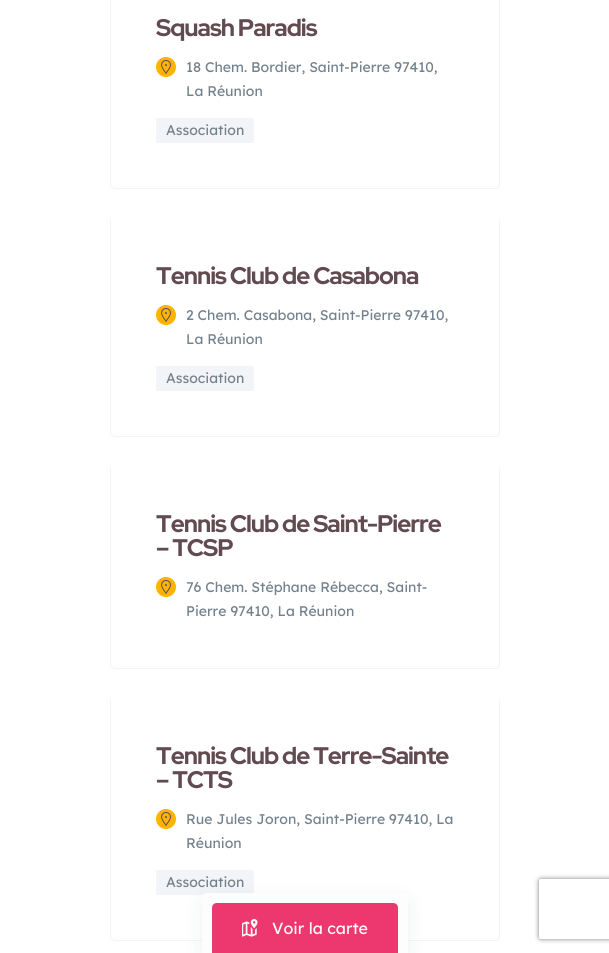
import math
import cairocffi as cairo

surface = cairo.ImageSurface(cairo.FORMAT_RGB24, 609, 953)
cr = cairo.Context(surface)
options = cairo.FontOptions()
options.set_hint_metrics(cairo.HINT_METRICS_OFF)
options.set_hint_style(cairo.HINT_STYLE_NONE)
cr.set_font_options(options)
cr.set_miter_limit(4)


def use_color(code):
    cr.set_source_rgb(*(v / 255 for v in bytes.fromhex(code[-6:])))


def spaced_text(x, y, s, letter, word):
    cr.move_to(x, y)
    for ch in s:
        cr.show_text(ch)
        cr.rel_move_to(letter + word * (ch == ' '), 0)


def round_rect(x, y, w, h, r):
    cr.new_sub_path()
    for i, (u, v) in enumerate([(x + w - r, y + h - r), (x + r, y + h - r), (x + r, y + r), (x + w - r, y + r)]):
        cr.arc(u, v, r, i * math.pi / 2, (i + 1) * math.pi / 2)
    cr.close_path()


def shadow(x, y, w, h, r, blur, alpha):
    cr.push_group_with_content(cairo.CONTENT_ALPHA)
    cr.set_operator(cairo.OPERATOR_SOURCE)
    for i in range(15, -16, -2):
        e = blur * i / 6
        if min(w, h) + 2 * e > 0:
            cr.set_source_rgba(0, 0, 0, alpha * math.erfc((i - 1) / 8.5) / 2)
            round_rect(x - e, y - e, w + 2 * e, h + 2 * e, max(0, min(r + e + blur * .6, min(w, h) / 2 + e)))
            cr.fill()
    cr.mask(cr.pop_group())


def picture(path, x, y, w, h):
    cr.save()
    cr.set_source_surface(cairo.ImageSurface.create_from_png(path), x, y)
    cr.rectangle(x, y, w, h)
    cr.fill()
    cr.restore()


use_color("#ffffff")
cr.paint()
use_color("#f2f4f8")
cr.set_fill_rule(cairo.FILL_RULE_EVEN_ODD)
cr.new_path()
cr.move_to(110, -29)
cr.line_to(500, -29)
cr.line_to(500, 184)
cr.curve_to(500, 187, 498, 189, 495, 189)
cr.line_to(115, 189)
cr.curve_to(112, 189, 110, 187, 110, 184)
cr.close_path()
cr.move_to(111, -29)
cr.line_to(499, -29)
cr.line_to(499, 184)
cr.curve_to(499, 186, 497, 188, 495, 188)
cr.line_to(115, 188)
cr.curve_to(113, 188, 111, 186, 111, 184)
cr.close_path()
cr.fill()
cr.select_font_face("Red Hat Display ExtraBold")
cr.set_font_size(24)
use_color("#624a51")
spaced_text(156, 36, "Squash Paradis", -1, 0)
use_color("#ffb300")
cr.new_path()
cr.arc(166, 67, 10, 0, 2 * math.pi)
cr.fill()
picture("img1.png", 161, 60, 10, 14)
cr.select_font_face("Lexend Deca")
cr.set_font_size(14)
use_color("#73818c")
cr.move_to(186, 72)
cr.show_text("18 Chem. Bordier, Saint-Pierre 97410,")
cr.move_to(186, 96)
cr.show_text("La Réunion")
use_color("#f2f4f8")
round_rect(156, 118, 98, 25, 2)
cr.fill()
use_color("#73818c")
cr.move_to(166, 135)
cr.show_text("Association")
use_color("#f2f4f8")
cr.new_path()
cr.move_to(110, 219)
cr.line_to(500, 219)
cr.line_to(500, 432)
cr.curve_to(500, 435, 498, 437, 495, 437)
cr.line_to(115, 437)
cr.curve_to(112, 437, 110, 435, 110, 432)
cr.close_path()
cr.move_to(111, 219)
cr.line_to(499, 219)
cr.line_to(499, 432)
cr.curve_to(499, 434, 497, 436, 495, 436)
cr.line_to(115, 436)
cr.curve_to(113, 436, 111, 434, 111, 432)
cr.close_path()
cr.fill()
cr.select_font_face("Red Hat Display ExtraBold")
cr.set_font_size(24)
use_color("#624a51")
spaced_text(156, 284, "Tennis Club de Casabona", -1, 0)
use_color("#ffb300")
cr.new_path()
cr.arc(166, 315, 10, 0, 2 * math.pi)
cr.fill()
picture("img1.png", 161, 308, 10, 14)
cr.select_font_face("Lexend Deca")
cr.set_font_size(14)
use_color("#73818c")
cr.move_to(186, 320)
cr.show_text("2 Chem. Casabona, Saint-Pierre 97410,")
cr.move_to(186, 344)
cr.show_text("La Réunion")
use_color("#f2f4f8")
round_rect(156, 366, 98, 25, 2)
cr.fill()
use_color("#73818c")
cr.move_to(166, 383)
cr.show_text("Association")
use_color("#f2f4f8")
cr.new_path()
cr.move_to(110, 467)
cr.line_to(500, 467)
cr.line_to(500, 664)
cr.curve_to(500, 667, 498, 669, 495, 669)
cr.line_to(115, 669)
cr.curve_to(112, 669, 110, 667, 110, 664)
cr.close_path()
cr.move_to(111, 467)
cr.line_to(499, 467)
cr.line_to(499, 664)
cr.curve_to(499, 666, 497, 668, 495, 668)
cr.line_to(115, 668)
cr.curve_to(113, 668, 111, 666, 111, 664)
cr.close_path()
cr.fill()
cr.select_font_face("Red Hat Display ExtraBold")
cr.set_font_size(24)
use_color("#624a51")
spaced_text(156, 532, "Tennis Club de Saint-Pierre", -1, 0)
spaced_text(156, 556, "– TCSP", -1, 0)
use_color("#ffb300")
cr.new_path()
cr.arc(166, 587, 10, 0, 2 * math.pi)
cr.fill()
picture("img1.png", 161, 580, 10, 14)
cr.select_font_face("Lexend Deca")
cr.set_font_size(14)
use_color("#73818c")
cr.move_to(186, 592)
cr.show_text("76 Chem. Stéphane Rébecca, Saint-")
cr.move_to(186, 616)
cr.show_text("Pierre 97410, La Réunion")
use_color("#f2f4f8")
cr.new_path()
cr.move_to(110, 699)
cr.line_to(500, 699)
cr.line_to(500, 936)
cr.curve_to(500, 939, 498, 941, 495, 941)
cr.line_to(115, 941)
cr.curve_to(112, 941, 110, 939, 110, 936)
cr.close_path()
cr.move_to(111, 699)
cr.line_to(499, 699)
cr.line_to(499, 936)
cr.curve_to(499, 938, 497, 940, 495, 940)
cr.line_to(115, 940)
cr.curve_to(113, 940, 111, 938, 111, 936)
cr.close_path()
cr.fill()
cr.select_font_face("Red Hat Display ExtraBold")
cr.set_font_size(24)
use_color("#624a51")
spaced_text(156, 764, "Tennis Club de Terre-Sainte", -1, 0)
spaced_text(156, 788, "– TCTS", -1, 0)
use_color("#ffb300")
cr.new_path()
cr.arc(166, 819, 10, 0, 2 * math.pi)
cr.fill()
picture("img1.png", 161, 812, 10, 14)
cr.select_font_face("Lexend Deca")
cr.set_font_size(14)
use_color("#73818c")
cr.move_to(186, 824)
cr.show_text("Rue Jules Joron, Saint-Pierre 97410, La")
cr.move_to(186, 848)
cr.show_text("Réunion")
use_color("#f2f4f8")
round_rect(156, 870, 98, 25, 2)
cr.fill()
use_color("#73818c")
cr.move_to(166, 887)
cr.show_text("Association")
use_color("#2a3946")
shadow(202, 899, 206, 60, 5, 10, 0.08)
use_color("#fdfdfe")
cr.new_path()
cr.move_to(207, 893)
cr.line_to(403, 893)
cr.curve_to(406, 893, 408, 895, 408, 898)
cr.line_to(408, 953)
cr.line_to(202, 953)
cr.line_to(202, 898)
cr.curve_to(202, 895, 204, 893, 207, 893)
cr.close_path()
cr.fill()
use_color("#ed386f")
cr.new_path()
cr.move_to(217, 903)
cr.line_to(393, 903)
cr.curve_to(396, 903, 398, 905, 398, 908)
cr.line_to(398, 953)
cr.line_to(212, 953)
cr.line_to(212, 908)
cr.curve_to(212, 905, 214, 903, 217, 903)
cr.close_path()
cr.fill()
picture("img2.png", 242, 919, 16, 18)
cr.set_font_size(16)
use_color("#fdfdfe")
cr.move_to(272, 934)
cr.show_text("Voir la carte")
cr.save()
cr.new_path()
cr.move_to(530, 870)
cr.line_to(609, 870)
cr.line_to(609, 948)
cr.line_to(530, 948)
cr.close_path()
cr.move_to(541, 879)
cr.line_to(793, 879)
cr.curve_to(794, 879, 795, 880, 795, 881)
cr.line_to(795, 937)
cr.curve_to(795, 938, 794, 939, 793, 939)
cr.line_to(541, 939)
cr.curve_to(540, 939, 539, 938, 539, 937)
cr.line_to(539, 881)
cr.curve_to(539, 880, 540, 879, 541, 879)
cr.close_path()
cr.clip()
use_color("#808080")
shadow(539, 879, 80, 60, 2, 2.5, 1)
cr.restore()
surface.write_to_png("result.png")
